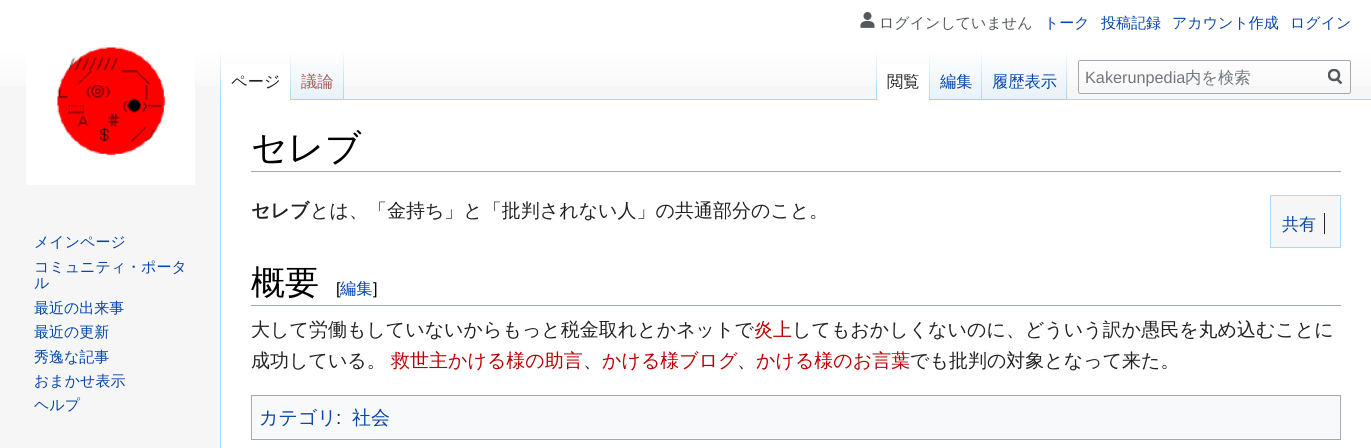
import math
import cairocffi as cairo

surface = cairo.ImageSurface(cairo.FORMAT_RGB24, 1371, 448)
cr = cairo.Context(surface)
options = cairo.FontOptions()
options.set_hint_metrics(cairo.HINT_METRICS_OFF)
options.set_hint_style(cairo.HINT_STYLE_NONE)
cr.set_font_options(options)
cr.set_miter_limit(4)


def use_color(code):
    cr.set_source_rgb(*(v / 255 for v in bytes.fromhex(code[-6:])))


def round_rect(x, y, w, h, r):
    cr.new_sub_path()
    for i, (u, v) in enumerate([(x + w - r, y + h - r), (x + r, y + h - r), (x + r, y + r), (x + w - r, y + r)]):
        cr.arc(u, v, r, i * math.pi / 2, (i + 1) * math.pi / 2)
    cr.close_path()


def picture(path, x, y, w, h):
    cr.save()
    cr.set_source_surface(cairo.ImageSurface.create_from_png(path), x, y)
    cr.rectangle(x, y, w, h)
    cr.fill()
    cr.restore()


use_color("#f6f6f6")
cr.paint()
gradient = cairo.LinearGradient(686, 0, 686, 100)
gradient.add_color_stop_rgba(0.5, 1, 1, 1, 1)
gradient.add_color_stop_rgba(1, 0.965, 0.965, 0.965, 1)
cr.set_source(gradient)
cr.rectangle(0, 0, 1371, 86)
cr.fill()
picture("img1.png", 860, 12, 15, 16)
cr.select_font_face("WenQuanYi Zen Hei Medium")
cr.set_font_size(15)
use_color("#54595d")
cr.move_to(879, 28)
cr.show_text("ログインしていません")
use_color("#0645ad")
cr.move_to(1044, 28)
cr.show_text("トーク")
cr.move_to(1101, 28)
cr.show_text("投稿記録")
cr.move_to(1172, 28)
cr.show_text("アカウント作成")
cr.move_to(1290, 28)
cr.show_text("ログイン")
use_color("#a7d7f9")
cr.rectangle(220, 99, 1, 349)
cr.fill()
gradient = cairo.LinearGradient(221, 50, 221, 100)
gradient.add_color_stop_rgba(0, 0.655, 0.843, 0.976, 0)
gradient.add_color_stop_rgba(1, 0.655, 0.843, 0.976, 1)
cr.set_source(gradient)
cr.rectangle(220, 50, 1, 50)
cr.fill()
use_color("#ffffff")
cr.rectangle(221, 64, 69, 36)
cr.fill()
gradient = cairo.LinearGradient(291, 50, 291, 100)
gradient.add_color_stop_rgba(0, 1, 1, 1, 1)
gradient.add_color_stop_rgba(1, 0.655, 0.843, 0.976, 1)
cr.set_source(gradient)
cr.rectangle(290, 50, 1, 50)
cr.fill()
cr.set_font_size(16.25)
use_color("#222222")
cr.move_to(231, 87)
cr.show_text("ページ")
gradient = cairo.LinearGradient(318, 100, 318, 50)
gradient.add_color_stop_rgba(0, 0.467, 0.757, 0.965, 1)
gradient.add_color_stop_rgba(0.03, 0.91, 0.949, 0.973, 1)
gradient.add_color_stop_rgba(1, 1, 1, 1, 1)
cr.set_source(gradient)
cr.rectangle(291, 57, 53, 43)
cr.fill()
gradient = cairo.LinearGradient(343, 50, 343, 100)
gradient.add_color_stop_rgba(0, 0.655, 0.843, 0.976, 0)
gradient.add_color_stop_rgba(1, 0.655, 0.843, 0.976, 1)
cr.set_source(gradient)
cr.rectangle(343, 50, 1, 50)
cr.fill()
use_color("#a55858")
cr.move_to(301, 87)
cr.show_text("議論")
use_color("#a7d7f9")
cr.rectangle(344, 99, 1027, 1)
cr.fill()
gradient = cairo.LinearGradient(877, 50, 877, 100)
gradient.add_color_stop_rgba(0, 0.655, 0.843, 0.976, 0)
gradient.add_color_stop_rgba(1, 0.655, 0.843, 0.976, 1)
cr.set_source(gradient)
cr.rectangle(876, 50, 1, 50)
cr.fill()
use_color("#ffffff")
cr.rectangle(878, 64, 51, 36)
cr.fill()
gradient = cairo.LinearGradient(929, 50, 929, 100)
gradient.add_color_stop_rgba(0, 1, 1, 1, 1)
gradient.add_color_stop_rgba(1, 0.655, 0.843, 0.976, 1)
cr.set_source(gradient)
cr.rectangle(929, 50, 1, 50)
cr.fill()
use_color("#222222")
cr.move_to(887, 87)
cr.show_text("閲覧")
gradient = cairo.LinearGradient(956, 100, 956, 50)
gradient.add_color_stop_rgba(0, 0.467, 0.757, 0.965, 1)
gradient.add_color_stop_rgba(0.03, 0.91, 0.949, 0.973, 1)
gradient.add_color_stop_rgba(1, 1, 1, 1, 1)
cr.set_source(gradient)
cr.rectangle(930, 57, 53, 43)
cr.fill()
gradient = cairo.LinearGradient(982, 50, 982, 100)
gradient.add_color_stop_rgba(0, 0.655, 0.843, 0.976, 0)
gradient.add_color_stop_rgba(1, 0.655, 0.843, 0.976, 1)
cr.set_source(gradient)
cr.rectangle(981, 50, 1, 50)
cr.fill()
use_color("#0645ad")
cr.move_to(940, 87)
cr.show_text("編集")
gradient = cairo.LinearGradient(1025, 100, 1025, 50)
gradient.add_color_stop_rgba(0, 0.467, 0.757, 0.965, 1)
gradient.add_color_stop_rgba(0.03, 0.91, 0.949, 0.973, 1)
gradient.add_color_stop_rgba(1, 1, 1, 1, 1)
cr.set_source(gradient)
cr.rectangle(983, 57, 85, 43)
cr.fill()
gradient = cairo.LinearGradient(1067, 50, 1067, 100)
gradient.add_color_stop_rgba(0, 0.655, 0.843, 0.976, 0)
gradient.add_color_stop_rgba(1, 0.655, 0.843, 0.976, 1)
cr.set_source(gradient)
cr.rectangle(1066, 50, 1, 50)
cr.fill()
use_color("#0645ad")
cr.move_to(992, 87)
cr.show_text("履歴表示")
round_rect(1078.5, 60.5, 272, 33, 2)
use_color("#a2a9b1")
cr.set_line_width(1)
cr.stroke()
cr.select_font_face("Liberation Sans")
use_color("#72777d")
cr.move_to(1085, 83)
cr.show_text("Kakerunpedia")
cr.select_font_face("WenQuanYi Zen Hei Medium")
cr.move_to(1185, 83)
cr.show_text("内を検索")
cr.new_path()
cr.move_to(1341.5, 83.5)
cr.line_to(1336.5, 78.5)
use_color("#54595d")
cr.set_line_width(2.5)
cr.stroke()
cr.save()
cr.rectangle(1328, 69, 15, 16)
cr.clip()
cr.arc(1334, 75, 5, 0, 2 * math.pi)
cr.stroke()
cr.restore()
picture("img2.png", 26, 47, 169, 138)
cr.set_font_size(15)
use_color("#0645ad")
cr.move_to(34, 247)
cr.show_text("メインページ")
cr.move_to(34, 272)
cr.show_text("コミュニティ・ポータ")
cr.move_to(34, 288)
cr.show_text("ル")
cr.move_to(34, 313)
cr.show_text("最近の出来事")
cr.move_to(34, 337)
cr.show_text("最近の更新")
cr.move_to(34, 362)
cr.show_text("秀逸な記事")
cr.move_to(34, 386)
cr.show_text("おまかせ表示")
cr.move_to(34, 410)
cr.show_text("ヘルプ")
use_color("#ffffff")
cr.rectangle(221, 100, 1150, 348)
cr.fill()
use_color("#a2a9b1")
cr.rectangle(251, 171, 1090, 1)
cr.fill()
cr.set_font_size(36)
use_color("#000000")
cr.move_to(251, 160)
cr.show_text("セレブ")
cr.select_font_face("WenQuanYi Zen Hei", cairo.FONT_SLANT_NORMAL, cairo.FONT_WEIGHT_BOLD)
cr.set_font_size(19)
use_color("#222222")
cr.move_to(251, 217)
cr.show_text("セレブ")
cr.select_font_face("WenQuanYi Zen Hei Medium")
cr.move_to(310, 217)
cr.show_text("とは、「金持ち」と「批判されない人」の共通部分のこと。")
use_color("#a2a9b1")
cr.rectangle(251, 305, 1090, 1)
cr.fill()
cr.set_font_size(34)
use_color("#000000")
cr.move_to(251, 294)
cr.show_text("概要")
cr.select_font_face("Liberation Sans")
cr.set_font_size(16.25)
cr.move_to(336, 294)
cr.show_text("[")
cr.select_font_face("WenQuanYi Zen Hei Medium")
use_color("#0645ad")
cr.move_to(340, 294)
cr.show_text("編集")
cr.select_font_face("Liberation Sans")
use_color("#000000")
cr.move_to(373, 294)
cr.show_text("]")
cr.select_font_face("WenQuanYi Zen Hei Medium")
cr.set_font_size(19)
use_color("#222222")
cr.move_to(251, 336)
cr.show_text("大して労働もしていないからもっと税金取れとかネットで")
use_color("#ba0000")
cr.move_to(754, 336)
cr.show_text("炎上")
use_color("#222222")
cr.move_to(792, 336)
cr.show_text("してもおかしくないのに、どういう訳か愚民を丸め込むことに")
cr.move_to(251, 367)
cr.show_text("成功している。")
use_color("#ba0000")
cr.move_to(391, 367)
cr.show_text("救世主かける様の助言")
use_color("#222222")
cr.move_to(583, 367)
cr.show_text("、")
use_color("#ba0000")
cr.move_to(602, 367)
cr.show_text("かける様ブログ")
use_color("#222222")
cr.move_to(737, 367)
cr.show_text("、")
use_color("#ba0000")
cr.move_to(756, 367)
cr.show_text("かける様のお言葉")
use_color("#222222")
cr.move_to(910, 367)
cr.show_text("でも批判の対象となって来た。")
use_color("#f6f6f6")
cr.rectangle(1270.5, 195.5, 70, 52)
cr.fill_preserve()
use_color("#a7d7f9")
cr.set_line_width(1)
cr.stroke()
cr.set_font_size(17)
use_color("#0645ad")
cr.move_to(1282, 230)
cr.show_text("共有")
use_color("#222222")
cr.rectangle(1324, 213, 1, 21)
cr.fill()
use_color("#f8f9fa")
cr.rectangle(251.5, 395.5, 1089, 44)
cr.fill_preserve()
use_color("#a2a9b1")
cr.stroke()
cr.set_font_size(19)
use_color("#0645ad")
cr.move_to(259, 424)
cr.show_text("カテゴリ")
cr.select_font_face("Liberation Sans")
use_color("#222222")
cr.move_to(336, 424)
cr.show_text(":")
cr.select_font_face("WenQuanYi Zen Hei Medium")
use_color("#0645ad")
cr.move_to(352, 424)
cr.show_text("社会")
surface.write_to_png("result.png")
